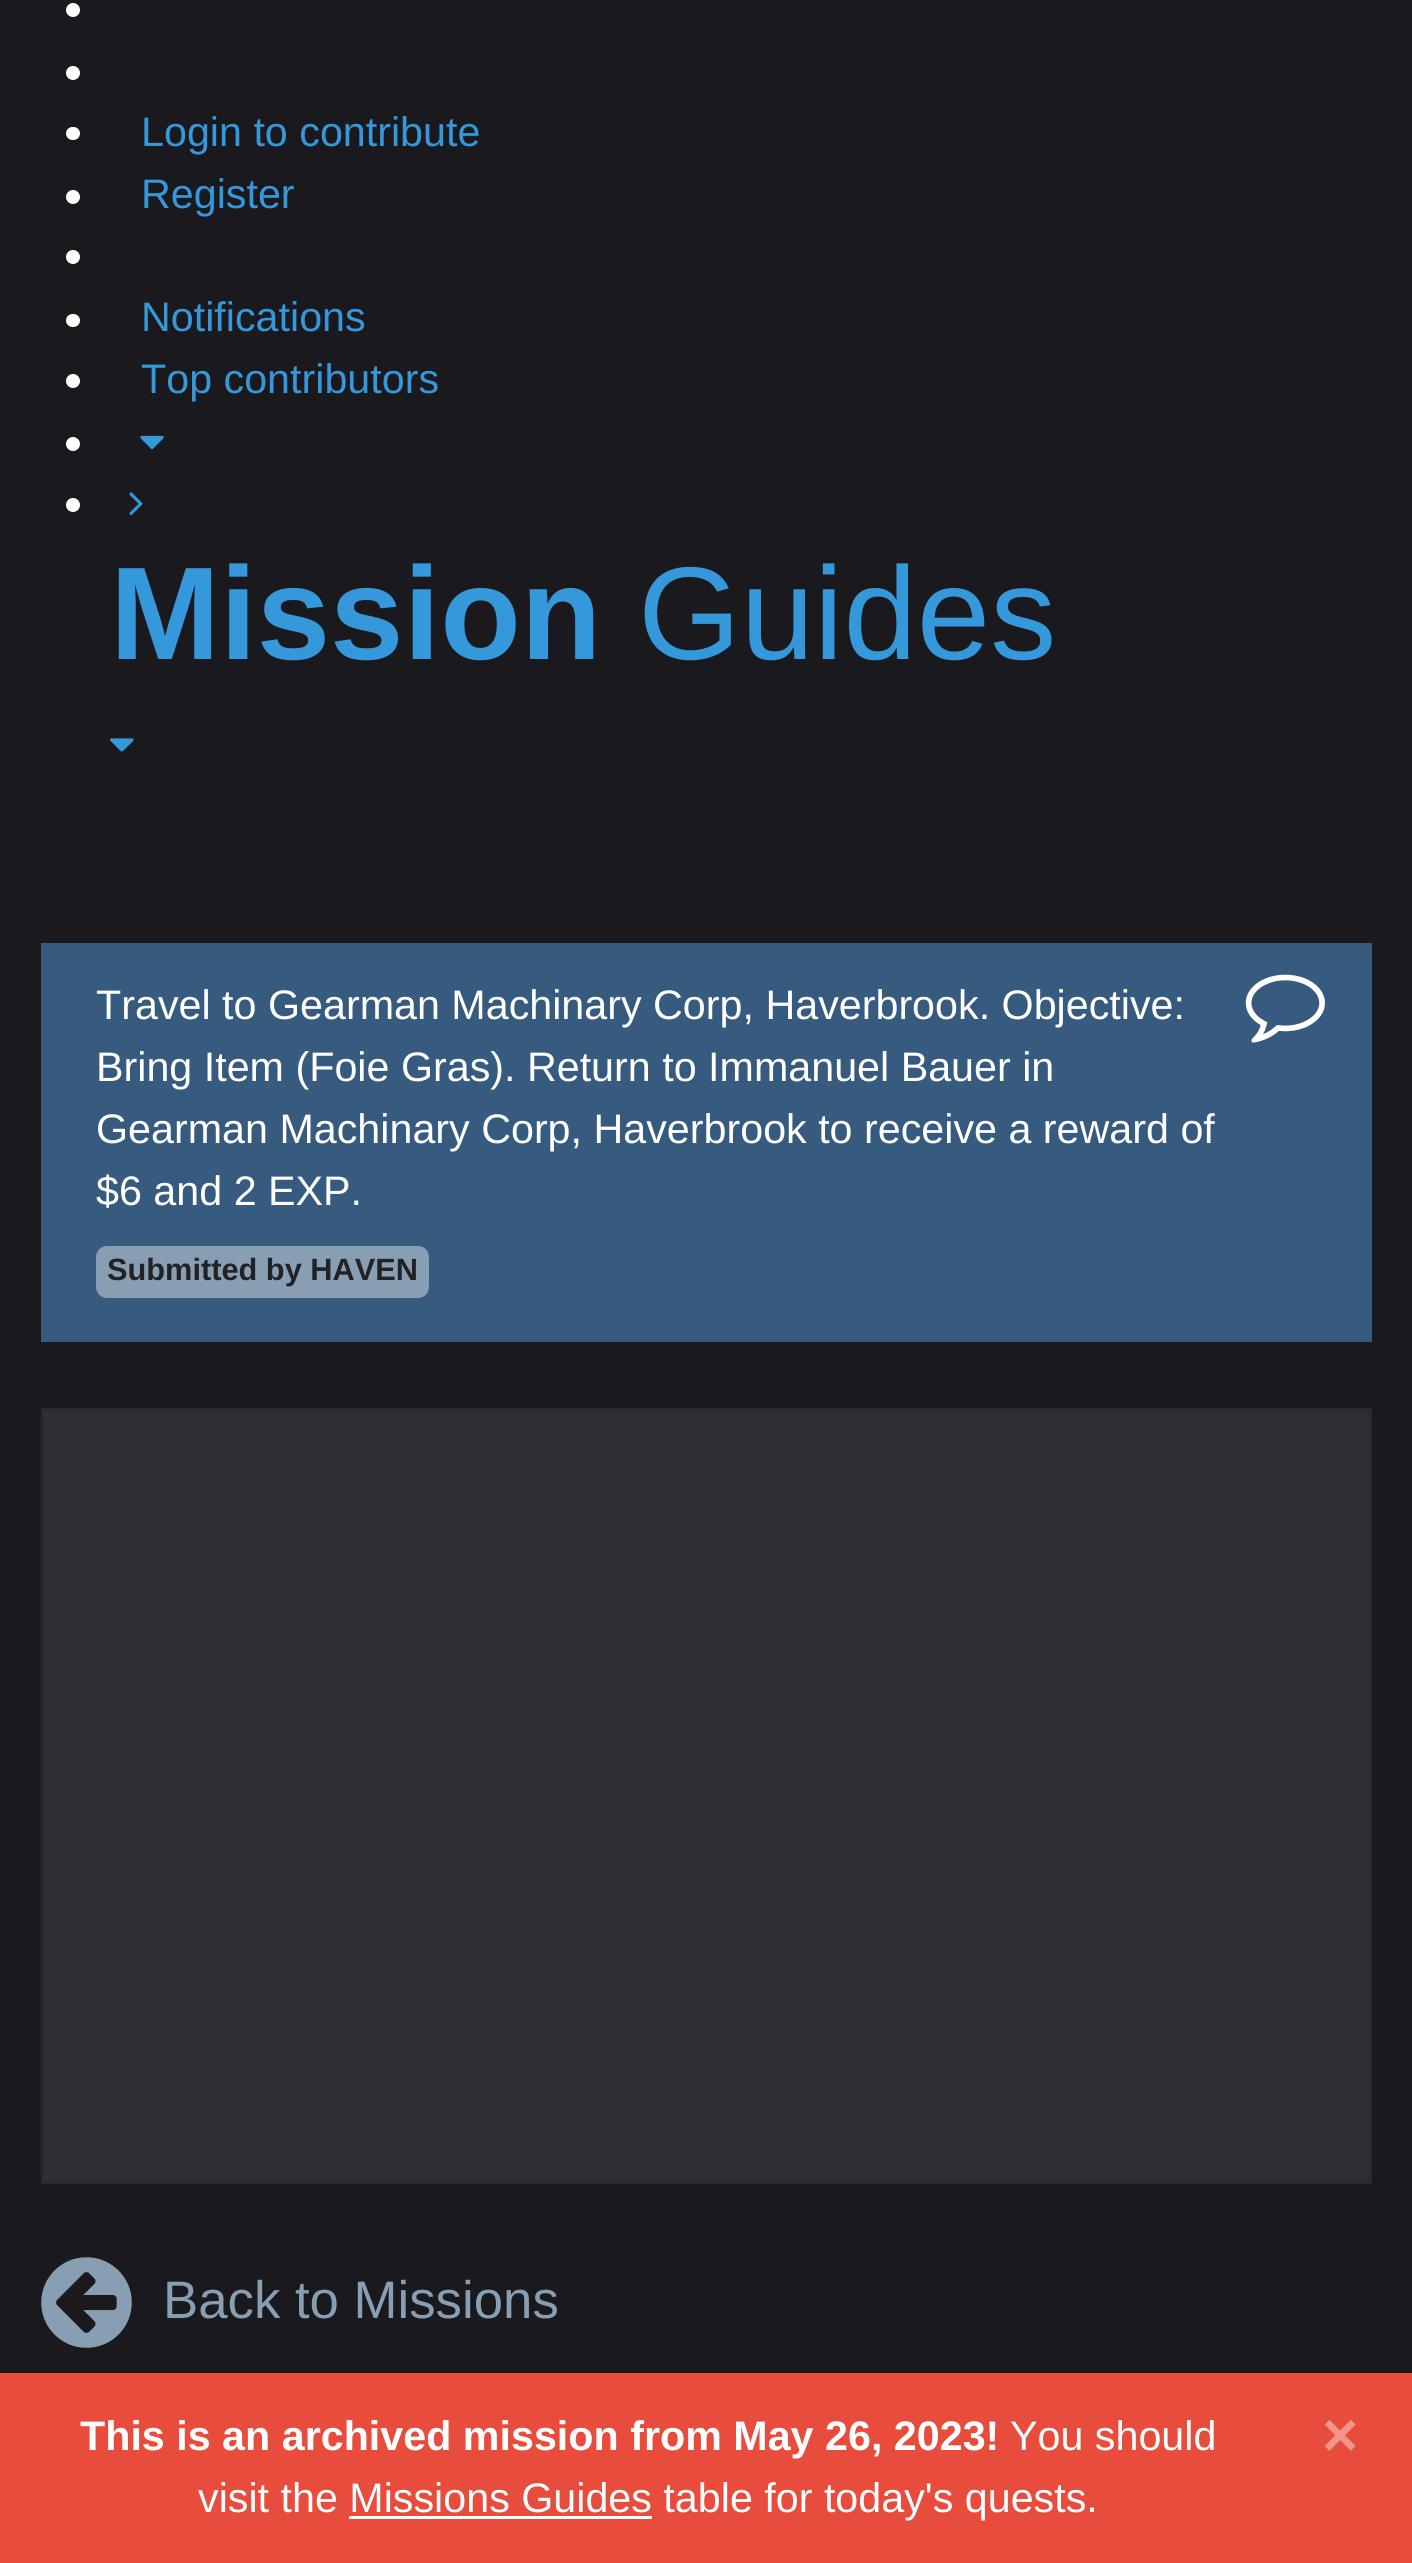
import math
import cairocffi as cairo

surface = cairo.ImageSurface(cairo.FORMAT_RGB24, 1412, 2563)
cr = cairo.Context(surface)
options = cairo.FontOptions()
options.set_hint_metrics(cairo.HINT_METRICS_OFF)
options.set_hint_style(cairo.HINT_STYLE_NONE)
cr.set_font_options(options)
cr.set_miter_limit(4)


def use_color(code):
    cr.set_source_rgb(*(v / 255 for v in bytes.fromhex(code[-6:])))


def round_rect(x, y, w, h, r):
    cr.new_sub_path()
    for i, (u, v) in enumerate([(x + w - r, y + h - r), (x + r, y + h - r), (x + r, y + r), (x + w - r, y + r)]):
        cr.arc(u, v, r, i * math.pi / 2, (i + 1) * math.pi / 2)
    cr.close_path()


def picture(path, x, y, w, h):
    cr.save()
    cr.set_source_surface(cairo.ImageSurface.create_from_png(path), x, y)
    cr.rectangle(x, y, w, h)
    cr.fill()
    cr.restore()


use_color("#19191e")
cr.paint()
use_color("#ffffff")
cr.arc(73, 10, 7, 0, 2 * math.pi)
cr.fill()
cr.arc(73, 73, 7, 0, 2 * math.pi)
cr.fill()
round_rect(66, 127, 14, 13, 6.5)
cr.fill()
cr.select_font_face("Liberation Sans")
cr.set_font_size(41.25)
use_color("#3498db")
cr.move_to(141, 146)
cr.show_text("Login to contribute")
use_color("#ffffff")
cr.new_path()
cr.arc(73, 197, 7, 0, 2 * math.pi)
cr.fill()
use_color("#3498db")
cr.move_to(141, 208)
cr.show_text("Register")
use_color("#ffffff")
cr.new_path()
cr.arc(73, 257, 7, 0, 2 * math.pi)
cr.fill()
round_rect(66, 314, 14, 13, 6.5)
cr.fill()
use_color("#3498db")
cr.move_to(141, 331)
cr.show_text("Notifications")
use_color("#ffffff")
cr.new_path()
cr.arc(73, 381, 7, 0, 2 * math.pi)
cr.fill()
use_color("#3498db")
cr.move_to(141, 393)
cr.show_text("Top contributors")
use_color("#ffffff")
cr.new_path()
cr.arc(73, 444, 7, 0, 2 * math.pi)
cr.fill()
picture("img1.png", 140, 435, 24, 15)
cr.arc(73, 505, 7, 0, 2 * math.pi)
cr.fill()
picture("img2.png", 129, 492, 14, 24)
cr.select_font_face("Liberation Sans", cairo.FONT_SLANT_NORMAL, cairo.FONT_WEIGHT_BOLD)
cr.set_font_size(132)
use_color("#3498db")
cr.move_to(110, 659)
cr.show_text("Mission")
cr.select_font_face("Liberation Sans")
cr.move_to(638, 659)
cr.show_text("Guides")
picture("img3.png", 110, 738, 24, 14)
use_color("#375a7f")
cr.rectangle(41, 943, 1331, 399)
cr.fill()
cr.set_font_size(41.25)
use_color("#ffffff")
cr.move_to(96, 1019)
cr.show_text("Travel to Gearman Machinary Corp, Haverbrook. Objective:")
picture("img4.png", 1245, 974, 80, 69)
cr.move_to(96, 1081)
cr.show_text("Bring Item (Foie Gras). Return to Immanuel Bauer in")
cr.move_to(96, 1143)
cr.show_text("Gearman Machinary Corp, Haverbrook to receive a reward of")
cr.move_to(96, 1205)
cr.show_text("$6 and 2 EXP.")
use_color("#889eb3")
round_rect(96, 1246, 333, 52, 11)
cr.fill()
cr.select_font_face("Liberation Sans", cairo.FONT_SLANT_NORMAL, cairo.FONT_WEIGHT_BOLD)
cr.set_font_size(30.75)
use_color("#222225")
cr.move_to(107, 1280)
cr.show_text("Submitted by HAVEN")
use_color("#303034")
cr.rectangle(42.5, 1409.5, 1328, 773)
cr.fill_preserve()
use_color("#2a2a2e")
cr.set_line_width(3)
cr.stroke()
picture("img5.png", 41, 2257, 91, 91)
cr.select_font_face("Liberation Sans")
cr.set_font_size(52.75)
use_color("#889eb3")
cr.move_to(163, 2318)
cr.show_text("Back to Missions")
use_color("#e74c3c")
cr.rectangle(0, 2373, 1412, 190)
cr.fill()
cr.select_font_face("Liberation Sans", cairo.FONT_SLANT_NORMAL, cairo.FONT_WEIGHT_BOLD)
cr.set_font_size(41.25)
use_color("#ffffff")
cr.move_to(80, 2450)
cr.show_text("This is an archived mission from May 26, 2023!")
cr.select_font_face("Liberation Sans")
cr.move_to(1010, 2450)
cr.show_text("You should")
cr.select_font_face("Liberation Sans", cairo.FONT_SLANT_NORMAL, cairo.FONT_WEIGHT_BOLD)
cr.set_font_size(62)
use_color("#f1948a")
cr.move_to(1322, 2456)
cr.show_text("×")
cr.select_font_face("Liberation Sans")
cr.set_font_size(41.25)
use_color("#ffffff")
cr.move_to(198, 2512)
cr.show_text("visit the Missions Guides table for today's quests.")
cr.rectangle(349, 2516, 303, 3)
cr.fill()
surface.write_to_png("result.png")
